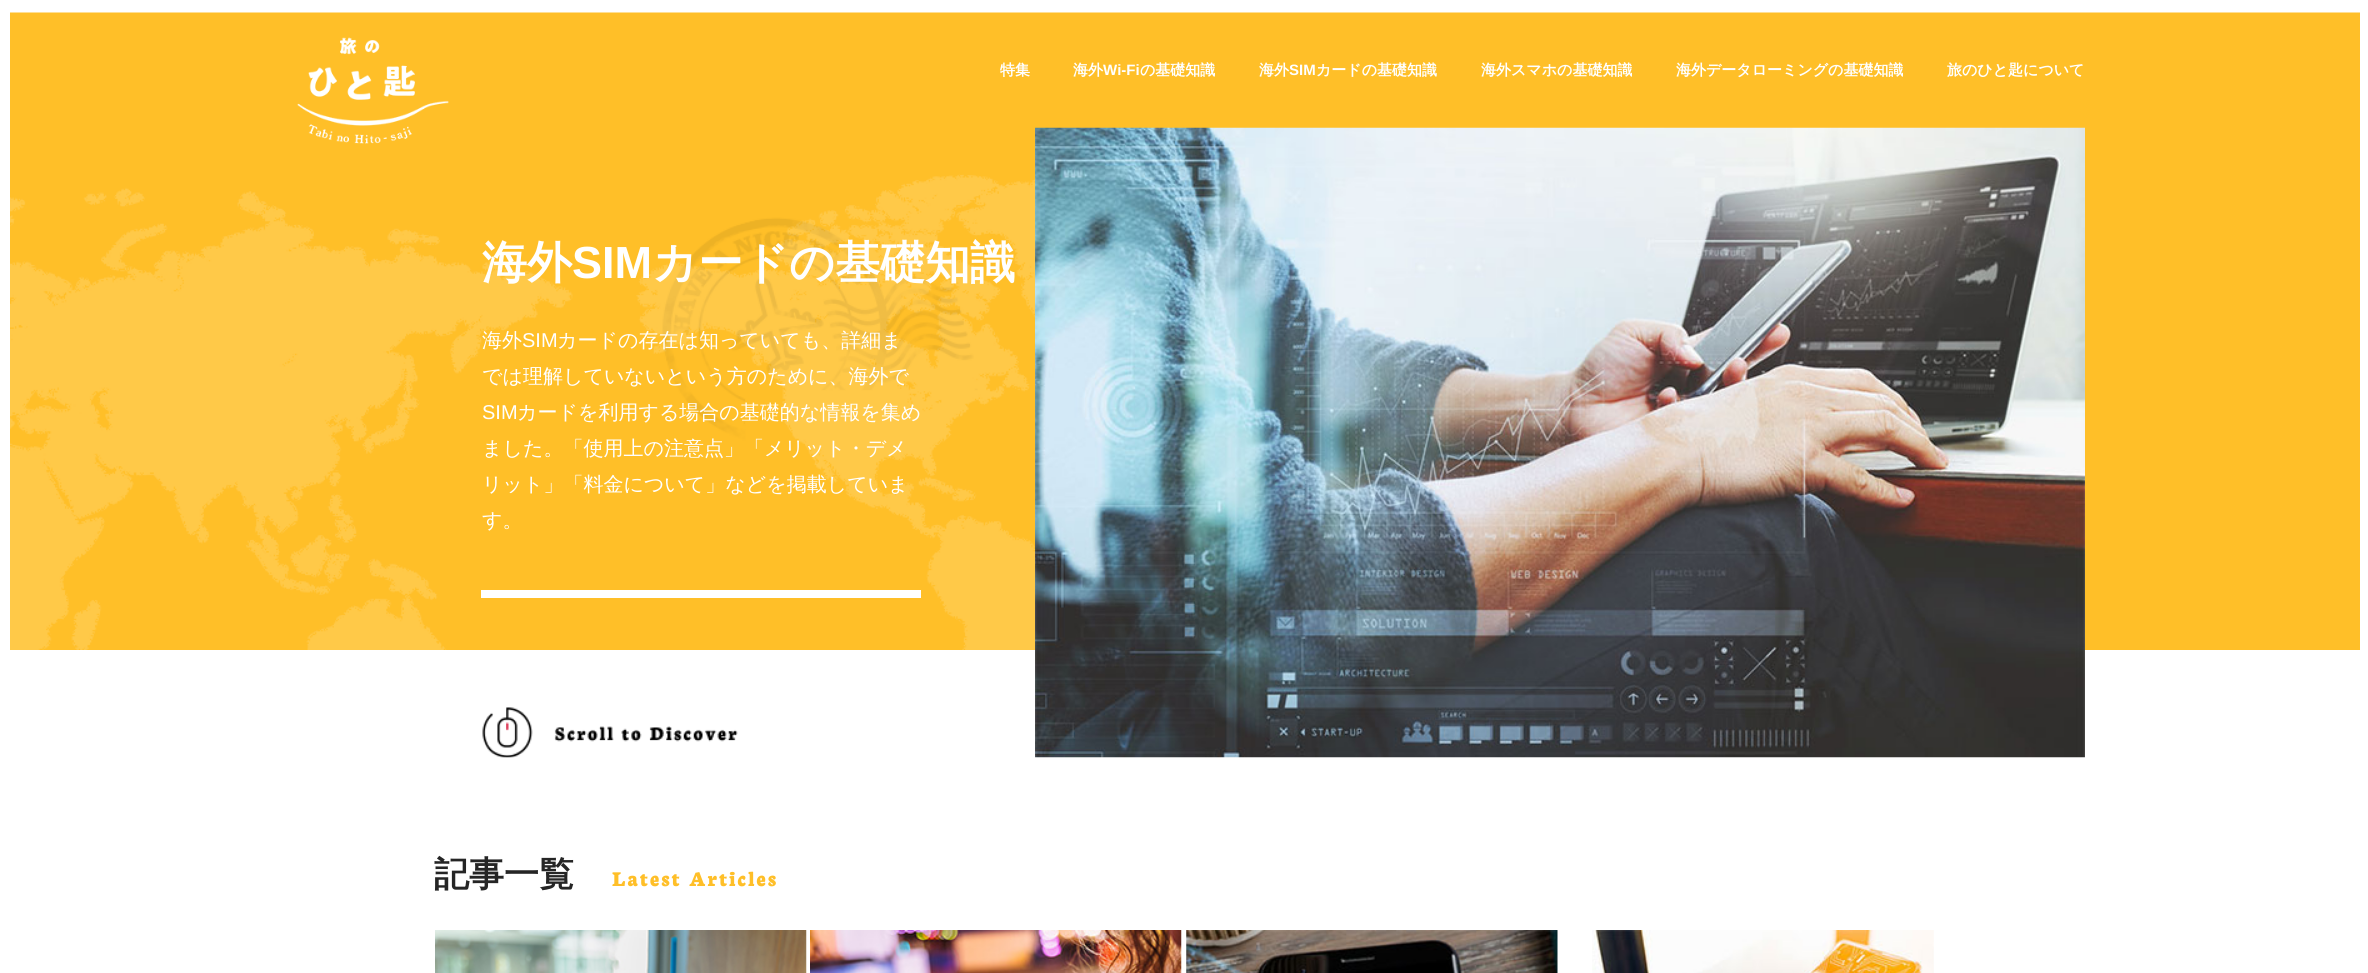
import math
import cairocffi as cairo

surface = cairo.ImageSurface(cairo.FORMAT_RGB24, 2368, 973)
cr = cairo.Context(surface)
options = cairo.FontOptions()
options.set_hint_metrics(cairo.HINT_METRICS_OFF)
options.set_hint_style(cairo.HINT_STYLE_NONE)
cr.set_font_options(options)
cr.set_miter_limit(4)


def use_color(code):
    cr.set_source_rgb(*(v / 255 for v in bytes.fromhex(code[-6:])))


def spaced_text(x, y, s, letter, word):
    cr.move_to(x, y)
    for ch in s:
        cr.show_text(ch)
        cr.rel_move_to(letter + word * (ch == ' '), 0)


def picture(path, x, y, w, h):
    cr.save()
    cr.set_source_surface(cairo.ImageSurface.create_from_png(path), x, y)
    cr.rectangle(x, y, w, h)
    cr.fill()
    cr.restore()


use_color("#ffffff")
cr.paint()
picture("img2.png", 10, 12, 2350, 638)
picture("img1.png", 297, 37, 152, 107)
cr.select_font_face("WenQuanYi Zen Hei", cairo.FONT_SLANT_NORMAL, cairo.FONT_WEIGHT_BOLD)
cr.set_font_size(15)
use_color("#ffffff")
cr.move_to(1000, 75)
cr.show_text("特集")
cr.move_to(1073, 75)
cr.show_text("海外")
cr.select_font_face("Liberation Sans", cairo.FONT_SLANT_NORMAL, cairo.FONT_WEIGHT_BOLD)
cr.move_to(1103, 75)
cr.show_text("Wi-Fi")
cr.select_font_face("WenQuanYi Zen Hei", cairo.FONT_SLANT_NORMAL, cairo.FONT_WEIGHT_BOLD)
cr.move_to(1140, 75)
cr.show_text("の基礎知識")
cr.move_to(1259, 75)
cr.show_text("海外")
cr.select_font_face("Liberation Sans", cairo.FONT_SLANT_NORMAL, cairo.FONT_WEIGHT_BOLD)
cr.move_to(1289, 75)
cr.show_text("SIM")
cr.select_font_face("WenQuanYi Zen Hei", cairo.FONT_SLANT_NORMAL, cairo.FONT_WEIGHT_BOLD)
cr.move_to(1316, 75)
cr.show_text("カードの基礎知識")
cr.move_to(1481, 75)
cr.show_text("海外スマホの基礎知識")
cr.move_to(1676, 75)
cr.show_text("海外データローミングの基礎知識")
cr.move_to(1947, 75)
cr.show_text("旅のひと匙について")
cr.set_font_size(45)
cr.move_to(482, 278)
cr.show_text("海外")
cr.select_font_face("Liberation Sans", cairo.FONT_SLANT_NORMAL, cairo.FONT_WEIGHT_BOLD)
cr.move_to(572, 278)
cr.show_text("SIM")
cr.select_font_face("WenQuanYi Zen Hei", cairo.FONT_SLANT_NORMAL, cairo.FONT_WEIGHT_BOLD)
cr.move_to(652, 278)
cr.show_text("カードの基礎知識")
cr.rectangle(481, 590, 440, 8)
cr.fill()
cr.select_font_face("WenQuanYi Zen Hei Medium")
cr.set_font_size(20)
cr.move_to(482, 347)
cr.show_text("海外")
cr.select_font_face("Liberation Sans")
cr.move_to(522, 347)
cr.show_text("SIM")
cr.select_font_face("WenQuanYi Zen Hei Medium")
cr.move_to(557, 347)
cr.show_text("カードの存在は知っていても、詳細ま")
cr.move_to(482, 383)
cr.show_text("では理解していないという方のために、海外で")
cr.select_font_face("Liberation Sans")
cr.move_to(482, 419)
cr.show_text("SIM")
cr.select_font_face("WenQuanYi Zen Hei Medium")
cr.move_to(517, 419)
cr.show_text("カードを利用する場合の基礎的な情報を集め")
cr.move_to(482, 455)
cr.show_text("ました。「使用上の注意点」「メリット・デメ")
cr.move_to(482, 491)
cr.show_text("リット」「料金について」などを掲載していま")
cr.move_to(482, 527)
cr.show_text("す。")
picture("img3.png", 1035, 127, 1050, 631)
picture("img4.png", 482, 707, 256, 51)
cr.select_font_face("WenQuanYi Zen Hei", cairo.FONT_SLANT_NORMAL, cairo.FONT_WEIGHT_BOLD)
cr.set_font_size(35)
use_color("#252525")
cr.move_to(434, 886)
cr.show_text("記事一覧")
cr.select_font_face("Neuton ExtraBold")
cr.set_font_size(22.5)
use_color("#ffbf28")
spaced_text(612, 886, "Latest Articles", 2.25, 0)
picture("img5.png", 435, 930, 372, 43)
picture("img6.png", 810, 930, 372, 43)
picture("img7.png", 1186, 930, 372, 43)
picture("img8.png", 1592, 930, 342, 43)
surface.write_to_png("result.png")
